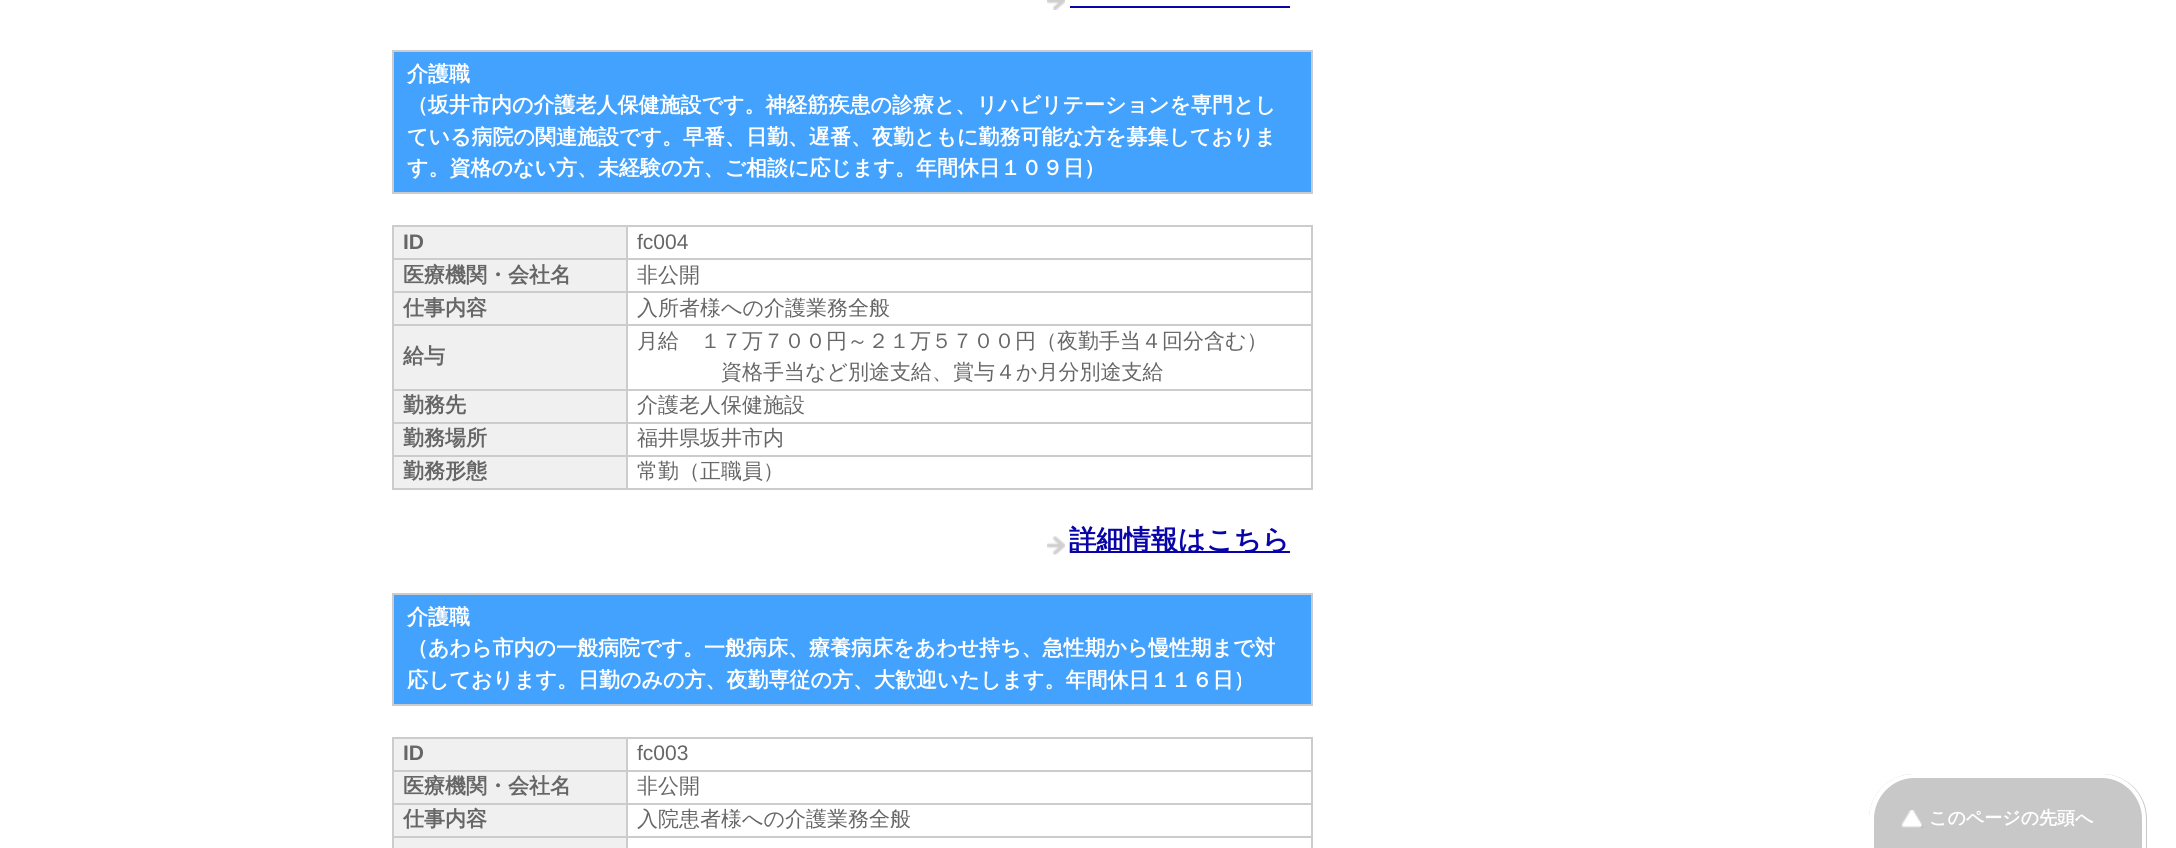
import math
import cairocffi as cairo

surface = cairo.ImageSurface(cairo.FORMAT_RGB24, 2176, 848)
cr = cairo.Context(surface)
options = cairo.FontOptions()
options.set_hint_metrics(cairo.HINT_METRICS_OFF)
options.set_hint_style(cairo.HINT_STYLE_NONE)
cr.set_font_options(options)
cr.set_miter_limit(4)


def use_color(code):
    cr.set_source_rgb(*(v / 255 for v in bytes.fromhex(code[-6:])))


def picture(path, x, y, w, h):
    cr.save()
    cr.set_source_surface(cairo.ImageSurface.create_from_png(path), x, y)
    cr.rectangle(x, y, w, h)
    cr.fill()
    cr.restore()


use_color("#ffffff")
cr.paint()
picture("img1.png", 1047, 0, 18, 10)
use_color("#0904a8")
cr.rectangle(1070, 6, 220, 2)
cr.fill()
use_color("#cccccc")
cr.rectangle(392, 50, 921, 2)
cr.fill()
cr.rectangle(1311, 50, 2, 144)
cr.fill()
cr.rectangle(392, 192, 921, 2)
cr.fill()
cr.rectangle(392, 50, 2, 144)
cr.fill()
use_color("#44a2ff")
cr.rectangle(394, 52, 917, 140)
cr.fill()
cr.select_font_face("WenQuanYi Zen Hei", cairo.FONT_SLANT_NORMAL, cairo.FONT_WEIGHT_BOLD)
cr.set_font_size(21)
use_color("#ffffff")
cr.move_to(407, 81)
cr.show_text("介護職")
cr.move_to(407, 112)
cr.show_text("（坂井市内の介護老人保健施設です。神経筋疾患の診療と、リハビリテーションを専門とし")
cr.move_to(407, 144)
cr.show_text("ている病院の関連施設です。早番、日勤、遅番、夜勤ともに勤務可能な方を募集しておりま")
cr.move_to(407, 175)
cr.show_text("す。資格のない方、未経験の方、ご相談に応じます。年間休日１０９日）")
use_color("#f0f0f0")
cr.rectangle(394, 227, 232, 31)
cr.fill()
use_color("#cccccc")
cr.rectangle(626, 225, 687, 2)
cr.fill()
cr.rectangle(626, 258, 687, 2)
cr.fill()
cr.rectangle(626, 291, 687, 2)
cr.fill()
cr.rectangle(626, 324, 687, 2)
cr.fill()
cr.rectangle(626, 389, 687, 2)
cr.fill()
cr.rectangle(626, 422, 687, 2)
cr.fill()
cr.rectangle(626, 455, 687, 2)
cr.fill()
cr.rectangle(1311, 455, 2, 34)
cr.fill()
cr.rectangle(626, 488, 687, 2)
cr.fill()
cr.rectangle(626, 455, 2, 34)
cr.fill()
cr.rectangle(392, 455, 235, 2)
cr.fill()
cr.rectangle(626, 422, 2, 34)
cr.fill()
cr.rectangle(392, 422, 235, 2)
cr.fill()
cr.rectangle(626, 389, 2, 34)
cr.fill()
cr.rectangle(392, 389, 235, 2)
cr.fill()
cr.rectangle(626, 324, 2, 66)
cr.fill()
cr.rectangle(392, 324, 235, 2)
cr.fill()
cr.rectangle(626, 291, 2, 35)
cr.fill()
cr.rectangle(392, 291, 235, 2)
cr.fill()
cr.rectangle(626, 258, 2, 35)
cr.fill()
cr.rectangle(392, 258, 235, 2)
cr.fill()
cr.rectangle(626, 225, 2, 35)
cr.fill()
cr.rectangle(392, 225, 235, 2)
cr.fill()
cr.rectangle(392, 488, 235, 2)
cr.fill()
cr.rectangle(392, 455, 2, 34)
cr.fill()
cr.rectangle(392, 422, 2, 34)
cr.fill()
cr.rectangle(392, 389, 2, 34)
cr.fill()
cr.rectangle(392, 324, 2, 66)
cr.fill()
cr.rectangle(392, 291, 2, 35)
cr.fill()
cr.rectangle(392, 258, 2, 35)
cr.fill()
cr.rectangle(392, 225, 2, 35)
cr.fill()
cr.select_font_face("Liberation Sans", cairo.FONT_SLANT_NORMAL, cairo.FONT_WEIGHT_BOLD)
use_color("#666666")
cr.move_to(403, 249)
cr.show_text("ID")
use_color("#cccccc")
cr.rectangle(1311, 422, 2, 34)
cr.fill()
cr.rectangle(1311, 389, 2, 34)
cr.fill()
cr.rectangle(1311, 324, 2, 66)
cr.fill()
cr.rectangle(1311, 291, 2, 35)
cr.fill()
cr.rectangle(1311, 258, 2, 35)
cr.fill()
cr.rectangle(1311, 225, 2, 35)
cr.fill()
cr.select_font_face("Liberation Sans")
use_color("#666666")
cr.move_to(637, 249)
cr.show_text("fc004")
use_color("#f0f0f0")
cr.rectangle(394, 260, 232, 31)
cr.fill()
cr.select_font_face("WenQuanYi Zen Hei", cairo.FONT_SLANT_NORMAL, cairo.FONT_WEIGHT_BOLD)
use_color("#666666")
cr.move_to(403, 282)
cr.show_text("医療機関・会社名")
cr.select_font_face("WenQuanYi Zen Hei Medium")
cr.move_to(637, 282)
cr.show_text("非公開")
use_color("#f0f0f0")
cr.rectangle(394, 293, 232, 31)
cr.fill()
cr.select_font_face("WenQuanYi Zen Hei", cairo.FONT_SLANT_NORMAL, cairo.FONT_WEIGHT_BOLD)
use_color("#666666")
cr.move_to(403, 315)
cr.show_text("仕事内容")
cr.select_font_face("WenQuanYi Zen Hei Medium")
cr.move_to(637, 315)
cr.show_text("入所者様への介護業務全般")
use_color("#f0f0f0")
cr.rectangle(394, 326, 232, 63)
cr.fill()
cr.select_font_face("WenQuanYi Zen Hei", cairo.FONT_SLANT_NORMAL, cairo.FONT_WEIGHT_BOLD)
use_color("#666666")
cr.move_to(403, 363)
cr.show_text("給与")
cr.select_font_face("WenQuanYi Zen Hei Medium")
cr.move_to(637, 348)
cr.show_text("月給　１７万７００円～２１万５７００円（夜勤手当４回分含む）")
cr.move_to(721, 379)
cr.show_text("資格手当など別途支給、賞与４か月分別途支給")
use_color("#f0f0f0")
cr.rectangle(394, 391, 232, 31)
cr.fill()
cr.select_font_face("WenQuanYi Zen Hei", cairo.FONT_SLANT_NORMAL, cairo.FONT_WEIGHT_BOLD)
use_color("#666666")
cr.move_to(403, 412)
cr.show_text("勤務先")
cr.select_font_face("WenQuanYi Zen Hei Medium")
cr.move_to(637, 412)
cr.show_text("介護老人保健施設")
use_color("#f0f0f0")
cr.rectangle(394, 424, 232, 31)
cr.fill()
cr.select_font_face("WenQuanYi Zen Hei", cairo.FONT_SLANT_NORMAL, cairo.FONT_WEIGHT_BOLD)
use_color("#666666")
cr.move_to(403, 445)
cr.show_text("勤務場所")
cr.select_font_face("WenQuanYi Zen Hei Medium")
cr.move_to(637, 445)
cr.show_text("福井県坂井市内")
use_color("#f0f0f0")
cr.rectangle(394, 457, 232, 31)
cr.fill()
cr.select_font_face("WenQuanYi Zen Hei", cairo.FONT_SLANT_NORMAL, cairo.FONT_WEIGHT_BOLD)
use_color("#666666")
cr.move_to(403, 478)
cr.show_text("勤務形態")
cr.select_font_face("WenQuanYi Zen Hei Medium")
cr.move_to(637, 478)
cr.show_text("常勤（正職員）")
picture("img2.png", 1047, 536, 18, 19)
use_color("#0904a8")
cr.rectangle(1070, 551, 220, 2)
cr.fill()
cr.select_font_face("WenQuanYi Zen Hei", cairo.FONT_SLANT_NORMAL, cairo.FONT_WEIGHT_BOLD)
cr.set_font_size(27.25)
cr.move_to(1069, 549)
cr.show_text("詳細情報はこちら")
use_color("#cccccc")
cr.rectangle(392, 593, 921, 2)
cr.fill()
cr.rectangle(1311, 593, 2, 112)
cr.fill()
cr.rectangle(392, 704, 921, 2)
cr.fill()
cr.rectangle(392, 593, 2, 112)
cr.fill()
use_color("#44a2ff")
cr.rectangle(394, 595, 917, 109)
cr.fill()
cr.set_font_size(21)
use_color("#ffffff")
cr.move_to(407, 624)
cr.show_text("介護職")
cr.move_to(407, 655)
cr.show_text("（あわら市内の一般病院です。一般病床、療養病床をあわせ持ち、急性期から慢性期まで対")
cr.move_to(407, 687)
cr.show_text("応しております。日勤のみの方、夜勤専従の方、大歓迎いたします。年間休日１１６日）")
use_color("#f0f0f0")
cr.rectangle(394, 739, 232, 31)
cr.fill()
use_color("#cccccc")
cr.rectangle(626, 737, 687, 2)
cr.fill()
cr.rectangle(626, 770, 687, 2)
cr.fill()
cr.rectangle(626, 803, 687, 2)
cr.fill()
cr.rectangle(626, 836, 687, 2)
cr.fill()
cr.rectangle(626, 836, 2, 12)
cr.fill()
cr.rectangle(392, 836, 235, 2)
cr.fill()
cr.rectangle(626, 803, 2, 34)
cr.fill()
cr.rectangle(392, 803, 235, 2)
cr.fill()
cr.rectangle(626, 770, 2, 34)
cr.fill()
cr.rectangle(392, 770, 235, 2)
cr.fill()
cr.rectangle(626, 737, 2, 34)
cr.fill()
cr.rectangle(392, 737, 235, 2)
cr.fill()
cr.rectangle(392, 836, 2, 12)
cr.fill()
cr.rectangle(392, 803, 2, 34)
cr.fill()
cr.rectangle(392, 770, 2, 34)
cr.fill()
cr.rectangle(392, 737, 2, 34)
cr.fill()
cr.select_font_face("Liberation Sans", cairo.FONT_SLANT_NORMAL, cairo.FONT_WEIGHT_BOLD)
use_color("#666666")
cr.move_to(403, 760)
cr.show_text("ID")
use_color("#cccccc")
cr.rectangle(1311, 836, 2, 12)
cr.fill()
cr.rectangle(1311, 803, 2, 34)
cr.fill()
cr.rectangle(1311, 770, 2, 34)
cr.fill()
cr.rectangle(1311, 737, 2, 34)
cr.fill()
cr.select_font_face("Liberation Sans")
use_color("#666666")
cr.move_to(637, 760)
cr.show_text("fc003")
use_color("#f0f0f0")
cr.rectangle(394, 772, 232, 31)
cr.fill()
cr.select_font_face("WenQuanYi Zen Hei", cairo.FONT_SLANT_NORMAL, cairo.FONT_WEIGHT_BOLD)
use_color("#666666")
cr.move_to(403, 793)
cr.show_text("医療機関・会社名")
cr.select_font_face("WenQuanYi Zen Hei Medium")
cr.move_to(637, 793)
cr.show_text("非公開")
use_color("#f0f0f0")
cr.rectangle(394, 805, 232, 31)
cr.fill()
cr.select_font_face("WenQuanYi Zen Hei", cairo.FONT_SLANT_NORMAL, cairo.FONT_WEIGHT_BOLD)
use_color("#666666")
cr.move_to(403, 826)
cr.show_text("仕事内容")
cr.select_font_face("WenQuanYi Zen Hei Medium")
cr.move_to(637, 826)
cr.show_text("入院患者様への介護業務全般")
use_color("#f0f0f0")
cr.rectangle(394, 838, 232, 10)
cr.fill()
use_color("#c8c8c8")
cr.new_path()
cr.move_to(1914, 774)
cr.line_to(2102, 774)
cr.curve_to(2127, 774, 2147, 794, 2147, 819)
cr.line_to(2147, 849)
cr.line_to(1869, 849)
cr.line_to(1869, 819)
cr.curve_to(1869, 794, 1889, 774, 1914, 774)
cr.close_path()
cr.fill()
picture("img3.png", 1901, 810, 22, 18)
use_color("#ffffff")
cr.set_fill_rule(cairo.FILL_RULE_EVEN_ODD)
cr.new_path()
cr.move_to(1914, 774)
cr.line_to(2102, 774)
cr.curve_to(2126, 774, 2146, 794, 2146, 819)
cr.line_to(2146, 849)
cr.line_to(1869, 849)
cr.line_to(1869, 819)
cr.curve_to(1869, 794, 1889, 774, 1914, 774)
cr.close_path()
cr.move_to(1914, 778)
cr.line_to(2102, 778)
cr.curve_to(2124, 778, 2142, 797, 2142, 819)
cr.line_to(2142, 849)
cr.line_to(1874, 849)
cr.line_to(1874, 819)
cr.curve_to(1874, 797, 1892, 778, 1914, 778)
cr.close_path()
cr.fill()
cr.select_font_face("WenQuanYi Zen Hei", cairo.FONT_SLANT_NORMAL, cairo.FONT_WEIGHT_BOLD)
cr.set_font_size(18)
cr.move_to(1929, 824)
cr.show_text("このページの先頭へ")
surface.write_to_png("result.png")
